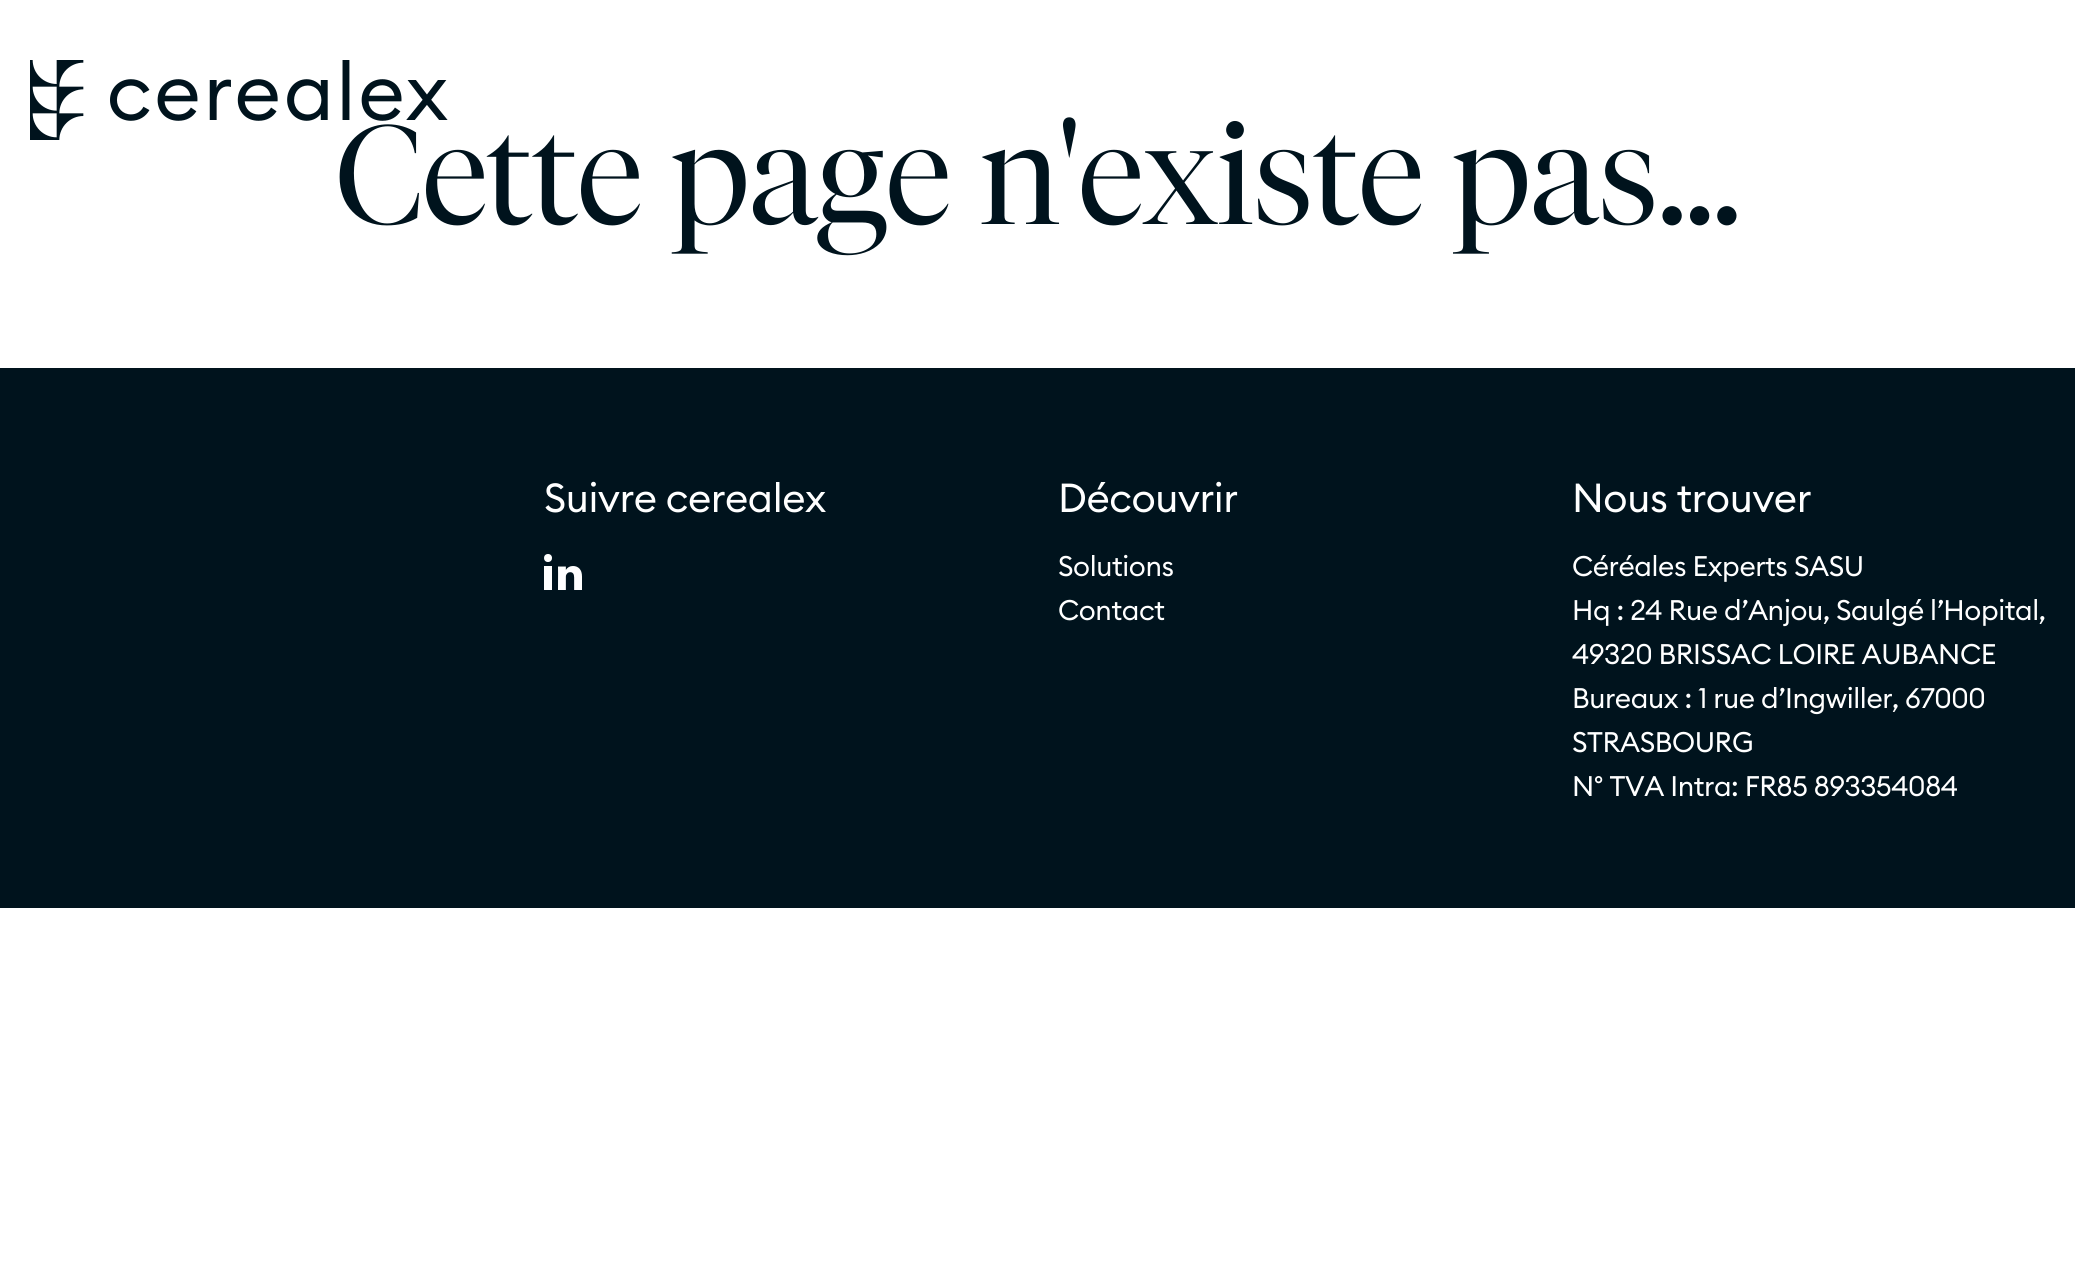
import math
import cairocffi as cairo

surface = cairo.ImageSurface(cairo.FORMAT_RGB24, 2075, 1261)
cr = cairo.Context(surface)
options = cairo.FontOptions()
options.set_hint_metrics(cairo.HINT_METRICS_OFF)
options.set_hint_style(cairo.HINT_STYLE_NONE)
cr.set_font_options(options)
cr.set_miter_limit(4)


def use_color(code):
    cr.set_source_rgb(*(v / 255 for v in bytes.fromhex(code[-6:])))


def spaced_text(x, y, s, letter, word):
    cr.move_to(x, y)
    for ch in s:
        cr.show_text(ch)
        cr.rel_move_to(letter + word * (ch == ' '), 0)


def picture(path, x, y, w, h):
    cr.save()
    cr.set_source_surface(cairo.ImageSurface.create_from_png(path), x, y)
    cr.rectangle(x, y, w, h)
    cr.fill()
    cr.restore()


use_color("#ffffff")
cr.paint()
cr.select_font_face("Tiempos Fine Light")
cr.set_font_size(140)
use_color("#00131d")
spaced_text(335, 224, "Cette page n'existe pas...", -0.4, 0)
picture("img1.png", 30, 60, 418, 80)
cr.rectangle(0, 368, 2075, 540)
cr.fill()
cr.select_font_face("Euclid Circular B")
cr.set_font_size(40)
use_color("#ffffff")
spaced_text(544, 512, "Suivre cerealex", -0.4, 0)
picture("img2.png", 544, 554, 38, 36)
spaced_text(1058, 512, "Découvrir", -0.4, 0)
cr.set_font_size(28)
spaced_text(1058, 576, "Solutions", -0.4, 0)
spaced_text(1058, 620, "Contact", -0.4, 0)
cr.set_font_size(40)
spaced_text(1572, 512, "Nous trouver", -0.4, 0)
cr.set_font_size(28)
spaced_text(1572, 576, "Céréales Experts SASU", -0.4, 0)
spaced_text(1572, 620, "Hq : 24 Rue d’Anjou, Saulgé l’Hopital,", -0.4, 0)
spaced_text(1572, 664, "49320 BRISSAC LOIRE AUBANCE", -0.4, 0)
spaced_text(1572, 708, "Bureaux : 1 rue d’Ingwiller, 67000", -0.4, 0)
spaced_text(1572, 752, "STRASBOURG", -0.4, 0)
spaced_text(1572, 796, "N° TVA Intra: FR85 893354084", -0.4, 0)
surface.write_to_png("result.png")
